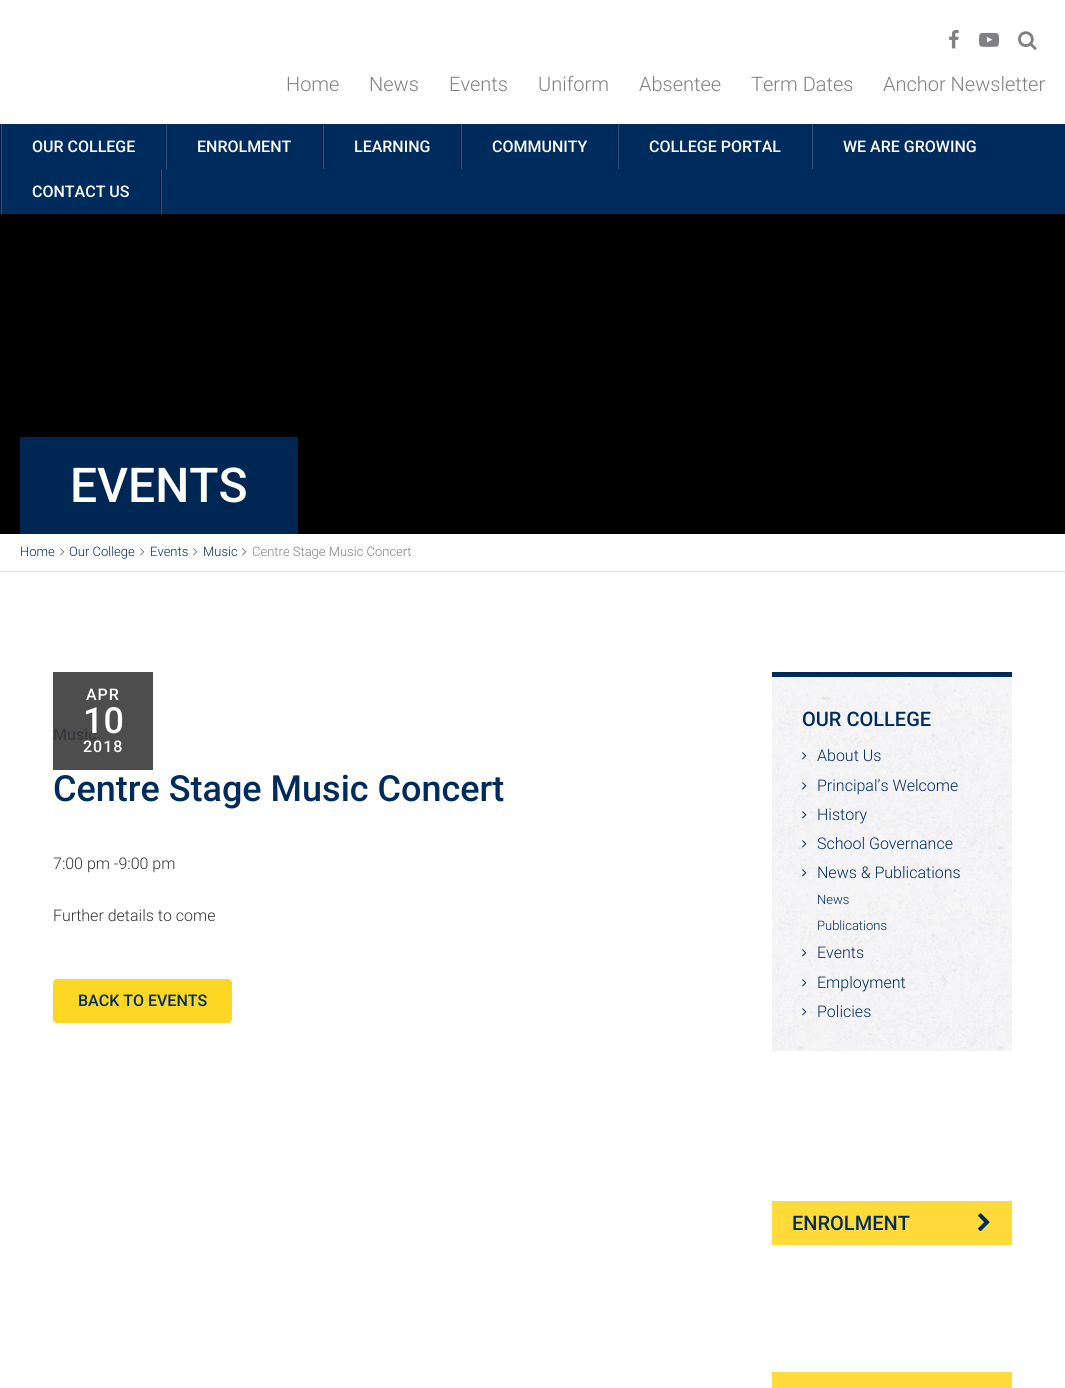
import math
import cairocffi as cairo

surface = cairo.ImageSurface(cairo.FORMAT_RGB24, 1065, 1388)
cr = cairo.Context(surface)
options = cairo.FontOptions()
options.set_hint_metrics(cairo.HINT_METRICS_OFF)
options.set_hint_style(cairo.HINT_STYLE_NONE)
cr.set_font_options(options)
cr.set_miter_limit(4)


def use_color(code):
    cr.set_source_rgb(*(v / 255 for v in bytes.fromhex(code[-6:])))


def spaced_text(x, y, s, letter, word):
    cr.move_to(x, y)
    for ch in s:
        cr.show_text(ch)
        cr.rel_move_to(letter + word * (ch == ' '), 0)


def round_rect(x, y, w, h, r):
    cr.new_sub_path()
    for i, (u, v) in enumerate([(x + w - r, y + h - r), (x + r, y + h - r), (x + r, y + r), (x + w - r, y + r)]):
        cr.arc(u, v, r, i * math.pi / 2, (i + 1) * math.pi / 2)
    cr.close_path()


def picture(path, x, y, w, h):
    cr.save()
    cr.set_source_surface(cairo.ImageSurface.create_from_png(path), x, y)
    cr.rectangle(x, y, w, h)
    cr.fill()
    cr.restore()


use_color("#ffffff")
cr.paint()
use_color("#4d4d4d")
cr.rectangle(53, 672, 100, 98)
cr.fill()
picture("img1.png", 949, 29, 10, 20)
picture("img2.png", 979, 32, 20, 15)
picture("img3.png", 1018, 31, 19, 19)
cr.select_font_face("Roboto Light")
cr.set_font_size(20)
use_color("#807f83")
cr.move_to(286, 91)
cr.show_text("Home")
cr.move_to(369, 91)
cr.show_text("News")
cr.move_to(449, 91)
cr.show_text("Events")
cr.move_to(538, 91)
cr.show_text("Uniform")
cr.move_to(639, 91)
cr.show_text("Absentee")
cr.move_to(751, 91)
cr.show_text("Term Dates")
cr.move_to(883, 91)
cr.show_text("Anchor Newsletter")
use_color("#002b5d")
cr.rectangle(2, 124, 1063, 90)
cr.fill()
use_color("#011b44")
cr.rectangle(0, 124, 1, 90)
cr.fill()
use_color("#33537d")
cr.rectangle(1, 124, 1, 90)
cr.fill()
cr.select_font_face("Roboto Medium")
cr.set_font_size(16)
use_color("#ffffff")
cr.move_to(32, 152)
cr.show_text("OUR COLLEGE")
use_color("#011b44")
cr.rectangle(165, 124, 1, 45)
cr.fill()
use_color("#33537d")
cr.rectangle(166, 124, 1, 45)
cr.fill()
use_color("#ffffff")
cr.move_to(197, 152)
cr.show_text("ENROLMENT")
use_color("#011b44")
cr.rectangle(322, 124, 1, 45)
cr.fill()
use_color("#33537d")
cr.rectangle(323, 124, 1, 45)
cr.fill()
use_color("#ffffff")
cr.move_to(354, 152)
cr.show_text("LEARNING")
use_color("#011b44")
cr.rectangle(460, 124, 1, 45)
cr.fill()
use_color("#33537d")
cr.rectangle(461, 124, 1, 45)
cr.fill()
use_color("#ffffff")
cr.move_to(492, 152)
cr.show_text("COMMUNITY")
use_color("#011b44")
cr.rectangle(617, 124, 1, 45)
cr.fill()
use_color("#33537d")
cr.rectangle(618, 124, 1, 45)
cr.fill()
use_color("#ffffff")
cr.move_to(649, 152)
cr.show_text("COLLEGE PORTAL")
use_color("#011b44")
cr.rectangle(811, 124, 1, 45)
cr.fill()
use_color("#33537d")
cr.rectangle(812, 124, 1, 45)
cr.fill()
use_color("#ffffff")
cr.move_to(843, 152)
cr.show_text("WE ARE GROWING")
use_color("#33537d")
cr.rectangle(161, 169, 1, 45)
cr.fill()
use_color("#011b44")
cr.rectangle(160, 169, 1, 45)
cr.fill()
use_color("#ffffff")
cr.move_to(32, 197)
cr.show_text("CONTACT US")
use_color("#000000")
cr.rectangle(0, 214, 1065, 320)
cr.fill()
use_color("#002754")
cr.rectangle(20, 437, 278, 97)
cr.fill()
cr.set_font_size(48)
use_color("#ffffff")
cr.move_to(70, 502)
cr.show_text("EVENTS")
use_color("#dddddd")
cr.rectangle(0, 571, 1065, 1)
cr.fill()
cr.select_font_face("Roboto Light")
cr.set_font_size(13)
use_color("#002b5d")
cr.move_to(20, 556)
cr.show_text("Home")
picture("img4.png", 60, 548, 5, 8)
cr.move_to(69, 556)
cr.show_text("Our College")
picture("img4.png", 140, 548, 5, 8)
cr.move_to(150, 556)
cr.show_text("Events")
picture("img4.png", 193, 548, 5, 8)
cr.move_to(203, 556)
cr.show_text("Music")
picture("img4.png", 242, 548, 5, 8)
use_color("#807f83")
cr.move_to(252, 556)
cr.show_text("Centre Stage Music Concert")
cr.select_font_face("Roboto Medium")
cr.set_font_size(16)
use_color("#ffffff")
spaced_text(86, 700, "APR", 1, 0)
use_color("#35393e")
cr.move_to(53, 740)
cr.show_text("Music")
cr.set_font_size(36)
use_color("#ffffff")
cr.move_to(83, 733)
cr.show_text("10")
cr.set_font_size(16)
spaced_text(83, 752, "2018", 1, 0)
cr.set_font_size(36)
use_color("#002b5d")
cr.move_to(53, 801)
cr.show_text("Centre Stage Music Concert")
cr.select_font_face("Roboto Light")
cr.set_font_size(16)
use_color("#333333")
cr.move_to(53, 869)
cr.show_text("7:00 pm -9:00 pm")
cr.move_to(53, 921)
cr.show_text("Further details to come")
use_color("#fed624")
round_rect(53, 979, 179, 44, 4)
cr.fill()
cr.select_font_face("Roboto Medium")
use_color("#002b5d")
cr.move_to(78, 1006)
cr.show_text("BACK TO EVENTS")
picture("img5.png", 772, 677, 240, 374)
cr.rectangle(772, 672, 240, 5)
cr.fill()
cr.set_font_size(20)
cr.move_to(802, 726)
cr.show_text("OUR COLLEGE")
picture("img6.png", 802, 752, 5, 8)
cr.select_font_face("Roboto Light")
cr.set_font_size(16)
cr.move_to(817, 761)
cr.show_text("About Us")
picture("img7.png", 802, 782, 5, 8)
cr.move_to(817, 791)
cr.show_text("Principal’s Welcome")
picture("img8.png", 802, 811, 5, 8)
cr.move_to(817, 820)
cr.show_text("History")
picture("img9.png", 802, 840, 5, 8)
cr.move_to(817, 849)
cr.show_text("School Governance")
picture("img10.png", 802, 869, 5, 8)
cr.move_to(817, 878)
cr.show_text("News & Publications")
cr.set_font_size(13)
cr.move_to(817, 904)
cr.show_text("News")
cr.move_to(817, 930)
cr.show_text("Publications")
picture("img11.png", 802, 949, 5, 8)
cr.set_font_size(16)
cr.move_to(817, 958)
cr.show_text("Events")
picture("img12.png", 802, 979, 5, 8)
cr.move_to(817, 988)
cr.show_text("Employment")
picture("img13.png", 802, 1008, 5, 8)
cr.move_to(817, 1017)
cr.show_text("Policies")
use_color("#feda3a")
cr.rectangle(772, 1201, 240, 44)
cr.fill()
cr.select_font_face("Roboto Medium")
cr.set_font_size(20)
use_color("#002b5d")
cr.move_to(792, 1230)
cr.show_text("ENROLMENT")
picture("img14.png", 978, 1213, 12, 19)
use_color("#feda3a")
cr.rectangle(772, 1372, 240, 16)
cr.fill()
surface.write_to_png("result.png")
